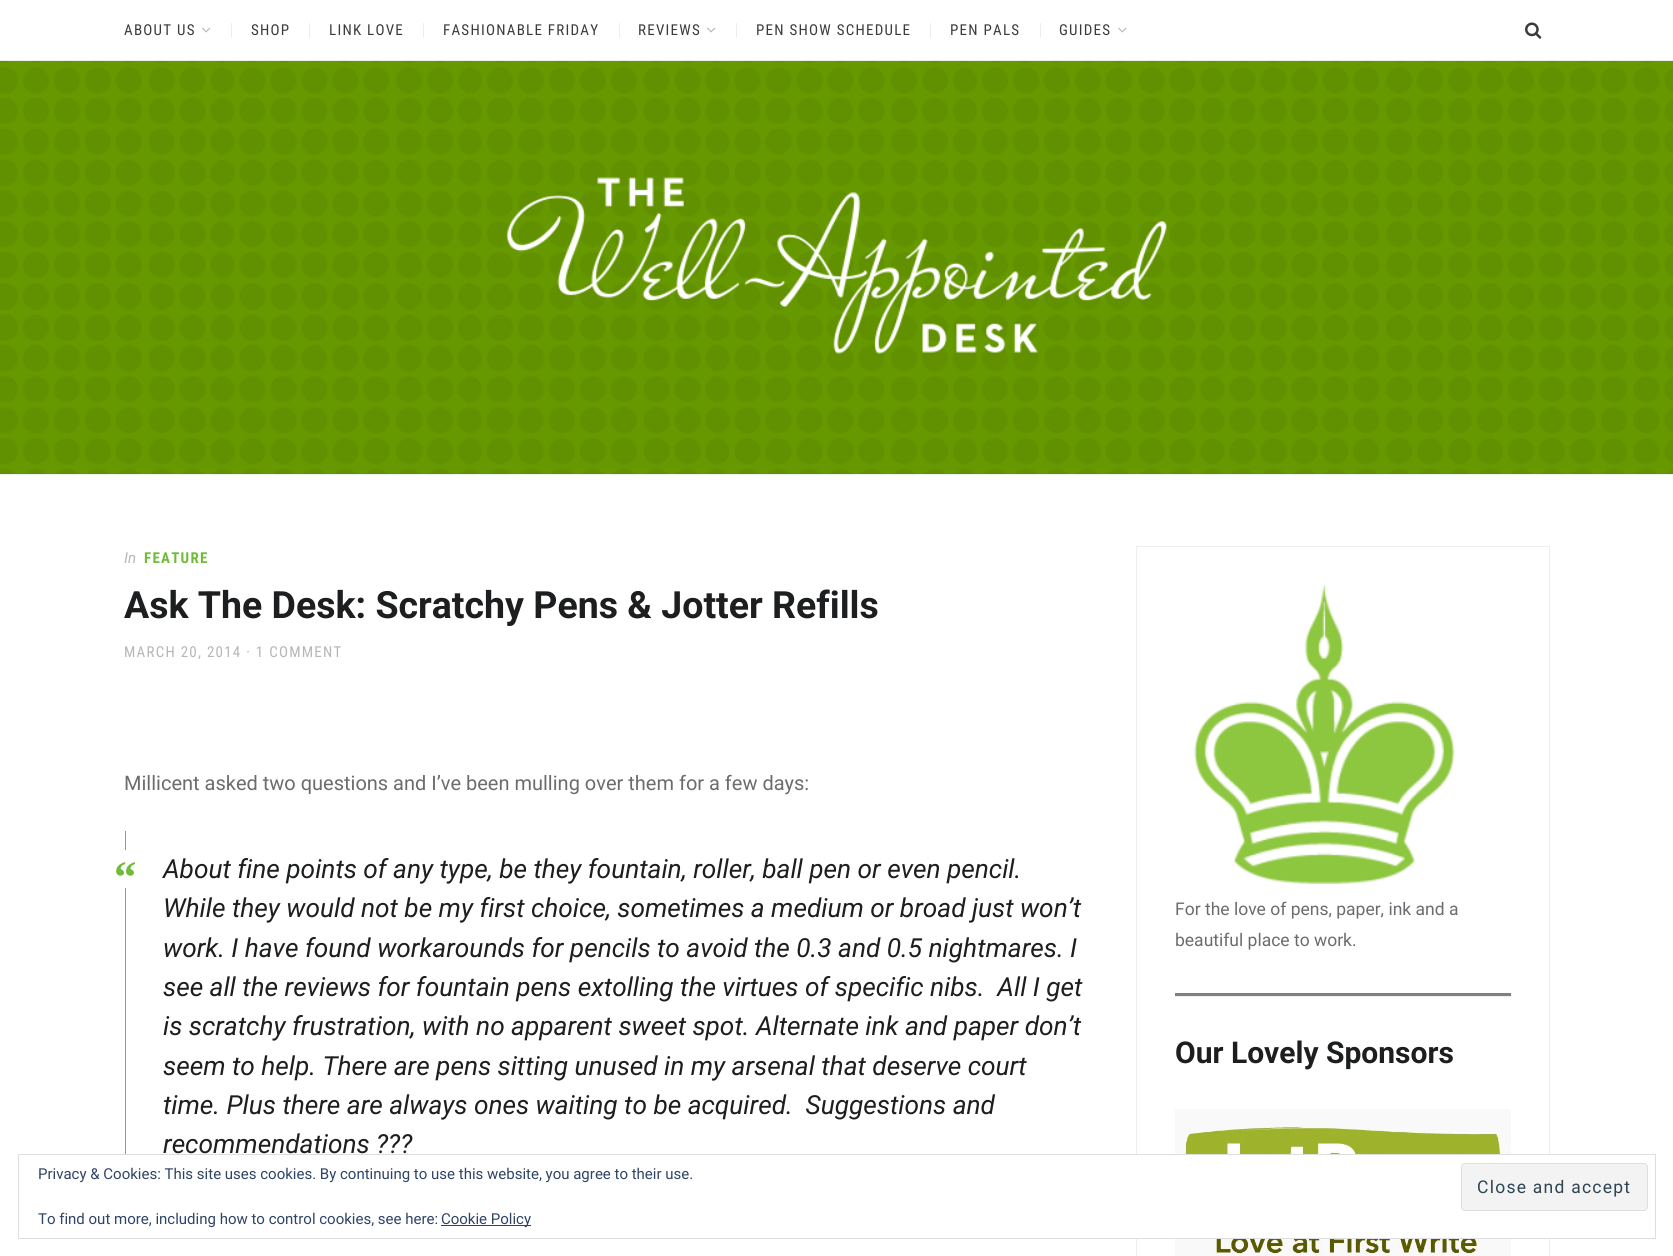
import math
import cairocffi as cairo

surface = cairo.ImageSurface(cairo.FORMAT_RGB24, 1673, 1256)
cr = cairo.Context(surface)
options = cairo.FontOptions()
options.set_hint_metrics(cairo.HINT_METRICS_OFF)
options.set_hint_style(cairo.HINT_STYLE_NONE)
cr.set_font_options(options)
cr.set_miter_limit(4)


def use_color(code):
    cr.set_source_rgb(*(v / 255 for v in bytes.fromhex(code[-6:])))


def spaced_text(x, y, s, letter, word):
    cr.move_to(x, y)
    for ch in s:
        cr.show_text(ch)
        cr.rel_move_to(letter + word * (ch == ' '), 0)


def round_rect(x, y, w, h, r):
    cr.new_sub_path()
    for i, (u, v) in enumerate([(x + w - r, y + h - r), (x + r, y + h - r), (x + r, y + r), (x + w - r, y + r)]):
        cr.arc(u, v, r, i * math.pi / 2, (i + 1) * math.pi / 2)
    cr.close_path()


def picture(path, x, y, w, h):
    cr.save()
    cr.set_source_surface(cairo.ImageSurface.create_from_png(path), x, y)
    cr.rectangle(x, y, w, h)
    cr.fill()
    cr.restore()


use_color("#ffffff")
cr.paint()
cr.select_font_face("Roboto Condensed")
cr.set_font_size(15)
use_color("#3a3b3d")
spaced_text(124, 35, "ABOUT US", 1.25, 0)
picture("img1.png", 202, 27, 9, 6)
use_color("#eeeeee")
cr.rectangle(231, 23, 1, 15)
cr.fill()
use_color("#3a3b3d")
spaced_text(251, 35, "SHOP", 1.25, 0)
use_color("#eeeeee")
cr.rectangle(309, 23, 1, 15)
cr.fill()
use_color("#3a3b3d")
spaced_text(329, 35, "LINK LOVE", 1.25, 0)
use_color("#eeeeee")
cr.rectangle(423, 23, 1, 15)
cr.fill()
use_color("#3a3b3d")
spaced_text(443, 35, "FASHIONABLE FRIDAY", 1.25, 0)
use_color("#eeeeee")
cr.rectangle(619, 23, 1, 15)
cr.fill()
use_color("#3a3b3d")
spaced_text(638, 35, "REVIEWS", 1.25, 0)
picture("img1.png", 707, 27, 9, 6)
use_color("#eeeeee")
cr.rectangle(736, 23, 1, 15)
cr.fill()
use_color("#3a3b3d")
spaced_text(756, 35, "PEN SHOW SCHEDULE", 1.25, 0)
use_color("#eeeeee")
cr.rectangle(930, 23, 1, 15)
cr.fill()
use_color("#3a3b3d")
spaced_text(950, 35, "PEN PALS", 1.25, 0)
use_color("#eeeeee")
cr.rectangle(1040, 23, 1, 15)
cr.fill()
use_color("#3a3b3d")
spaced_text(1059, 35, "GUIDES", 1.25, 0)
picture("img2.png", 1118, 27, 9, 6)
picture("img3.png", 1525, 22, 17, 17)
picture("img4.png", 0, 61, 1673, 413)
use_color("#eeeeee")
cr.rectangle(0, 60, 1673, 1)
cr.fill()
cr.rectangle(0, 474, 1673, 1)
cr.fill()
picture("img5.png", 506, 177, 661, 177)
cr.select_font_face("Roboto", cairo.FONT_SLANT_ITALIC)
use_color("#b6b6b6")
cr.move_to(124, 563)
cr.show_text("In")
cr.select_font_face("Roboto Condensed", cairo.FONT_SLANT_NORMAL, cairo.FONT_WEIGHT_BOLD)
use_color("#70bc3a")
spaced_text(144, 563, "FEATURE", 1.25, 0)
cr.select_font_face("Roboto", cairo.FONT_SLANT_NORMAL, cairo.FONT_WEIGHT_BOLD)
cr.set_font_size(37.5)
use_color("#1d1e1f")
cr.move_to(124, 618)
cr.show_text("Ask The Desk: Scratchy Pens & Jotter Refills")
cr.select_font_face("Roboto Condensed")
cr.set_font_size(15)
use_color("#b6b6b6")
spaced_text(124, 657, "MARCH 20, 2014 · 1 COMMENT", 1.25, 0)
cr.select_font_face("Roboto")
cr.set_font_size(20)
use_color("#6a6c6f")
cr.move_to(124, 790)
cr.show_text("Millicent asked two questions and I’ve been mulling over them for a few days:")
use_color("#70bc3a")
cr.rectangle(125, 831, 1, 323)
cr.fill()
use_color("#ffffff")
cr.rectangle(125, 850, 1, 38)
cr.fill()
cr.select_font_face("Liberation Serif", cairo.FONT_SLANT_NORMAL, cairo.FONT_WEIGHT_BOLD)
cr.set_font_size(45)
use_color("#70bc3a")
cr.move_to(114, 892)
cr.show_text("“")
cr.select_font_face("Roboto", cairo.FONT_SLANT_ITALIC)
cr.set_font_size(26.25)
use_color("#1d1e1f")
cr.move_to(163, 878)
cr.show_text("About fine points of any type, be they fountain, roller, ball pen or even pencil.")
cr.move_to(163, 917)
cr.show_text("While they would not be my first choice, sometimes a medium or broad just won’t")
cr.move_to(163, 957)
cr.show_text("work. I have found workarounds for pencils to avoid the 0.3 and 0.5 nightmares. I")
cr.move_to(163, 996)
cr.show_text("see all the reviews for fountain pens extolling the virtues of specific nibs.  All I get")
cr.move_to(163, 1035)
cr.show_text("is scratchy frustration, with no apparent sweet spot. Alternate ink and paper don’t")
cr.move_to(163, 1075)
cr.show_text("seem to help. There are pens sitting unused in my arsenal that deserve court")
cr.move_to(163, 1114)
cr.show_text("time. Plus there are always ones waiting to be acquired.  Suggestions and")
cr.move_to(163, 1153)
cr.show_text("recommendations ???")
cr.rectangle(1136.5, 546.5, 413, 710)
use_color("#eeeeee")
cr.set_line_width(1)
cr.stroke()
picture("img6.png", 1193, 585, 262, 299)
cr.select_font_face("Roboto")
cr.set_font_size(17.5)
use_color("#6a6c6f")
cr.move_to(1175, 915)
cr.show_text("For the love of pens, paper, ink and a")
cr.move_to(1175, 946)
cr.show_text("beautiful place to work.")
use_color("#eeeeee")
cr.rectangle(1175, 996, 336, 1)
cr.fill()
use_color("#808080")
cr.rectangle(1175, 993, 336, 3)
cr.fill()
cr.select_font_face("Roboto", cairo.FONT_SLANT_NORMAL, cairo.FONT_WEIGHT_BOLD)
cr.set_font_size(30)
use_color("#1d1e1f")
cr.move_to(1175, 1063)
cr.show_text("Our Lovely Sponsors")
picture("img7.png", 1175, 1109, 336, 147)
use_color("#ffffff")
cr.rectangle(1136, 1155, 414, 83)
cr.fill()
cr.rectangle(18.5, 1154.5, 1637, 84)
use_color("#dedede")
cr.stroke()
cr.select_font_face("Roboto")
cr.set_font_size(15)
use_color("#2e4467")
cr.move_to(38, 1179)
cr.show_text("Privacy & Cookies: This site uses cookies. By continuing to use this website, you agree to their use.")
use_color("#f3f3f3")
round_rect(1461.5, 1163.5, 186, 47, 3.5)
cr.fill_preserve()
use_color("#dedede")
cr.stroke()
cr.set_font_size(17.5)
use_color("#2e4453")
spaced_text(1477, 1193, "Close and accept", 1.25, 0)
cr.set_font_size(15)
use_color("#2e4467")
cr.move_to(38, 1224)
cr.show_text("To find out more, including how to control cookies, see here:")
cr.rectangle(441, 1225, 90, 1)
cr.fill()
cr.move_to(441, 1224)
cr.show_text("Cookie Policy")
surface.write_to_png("result.png")
